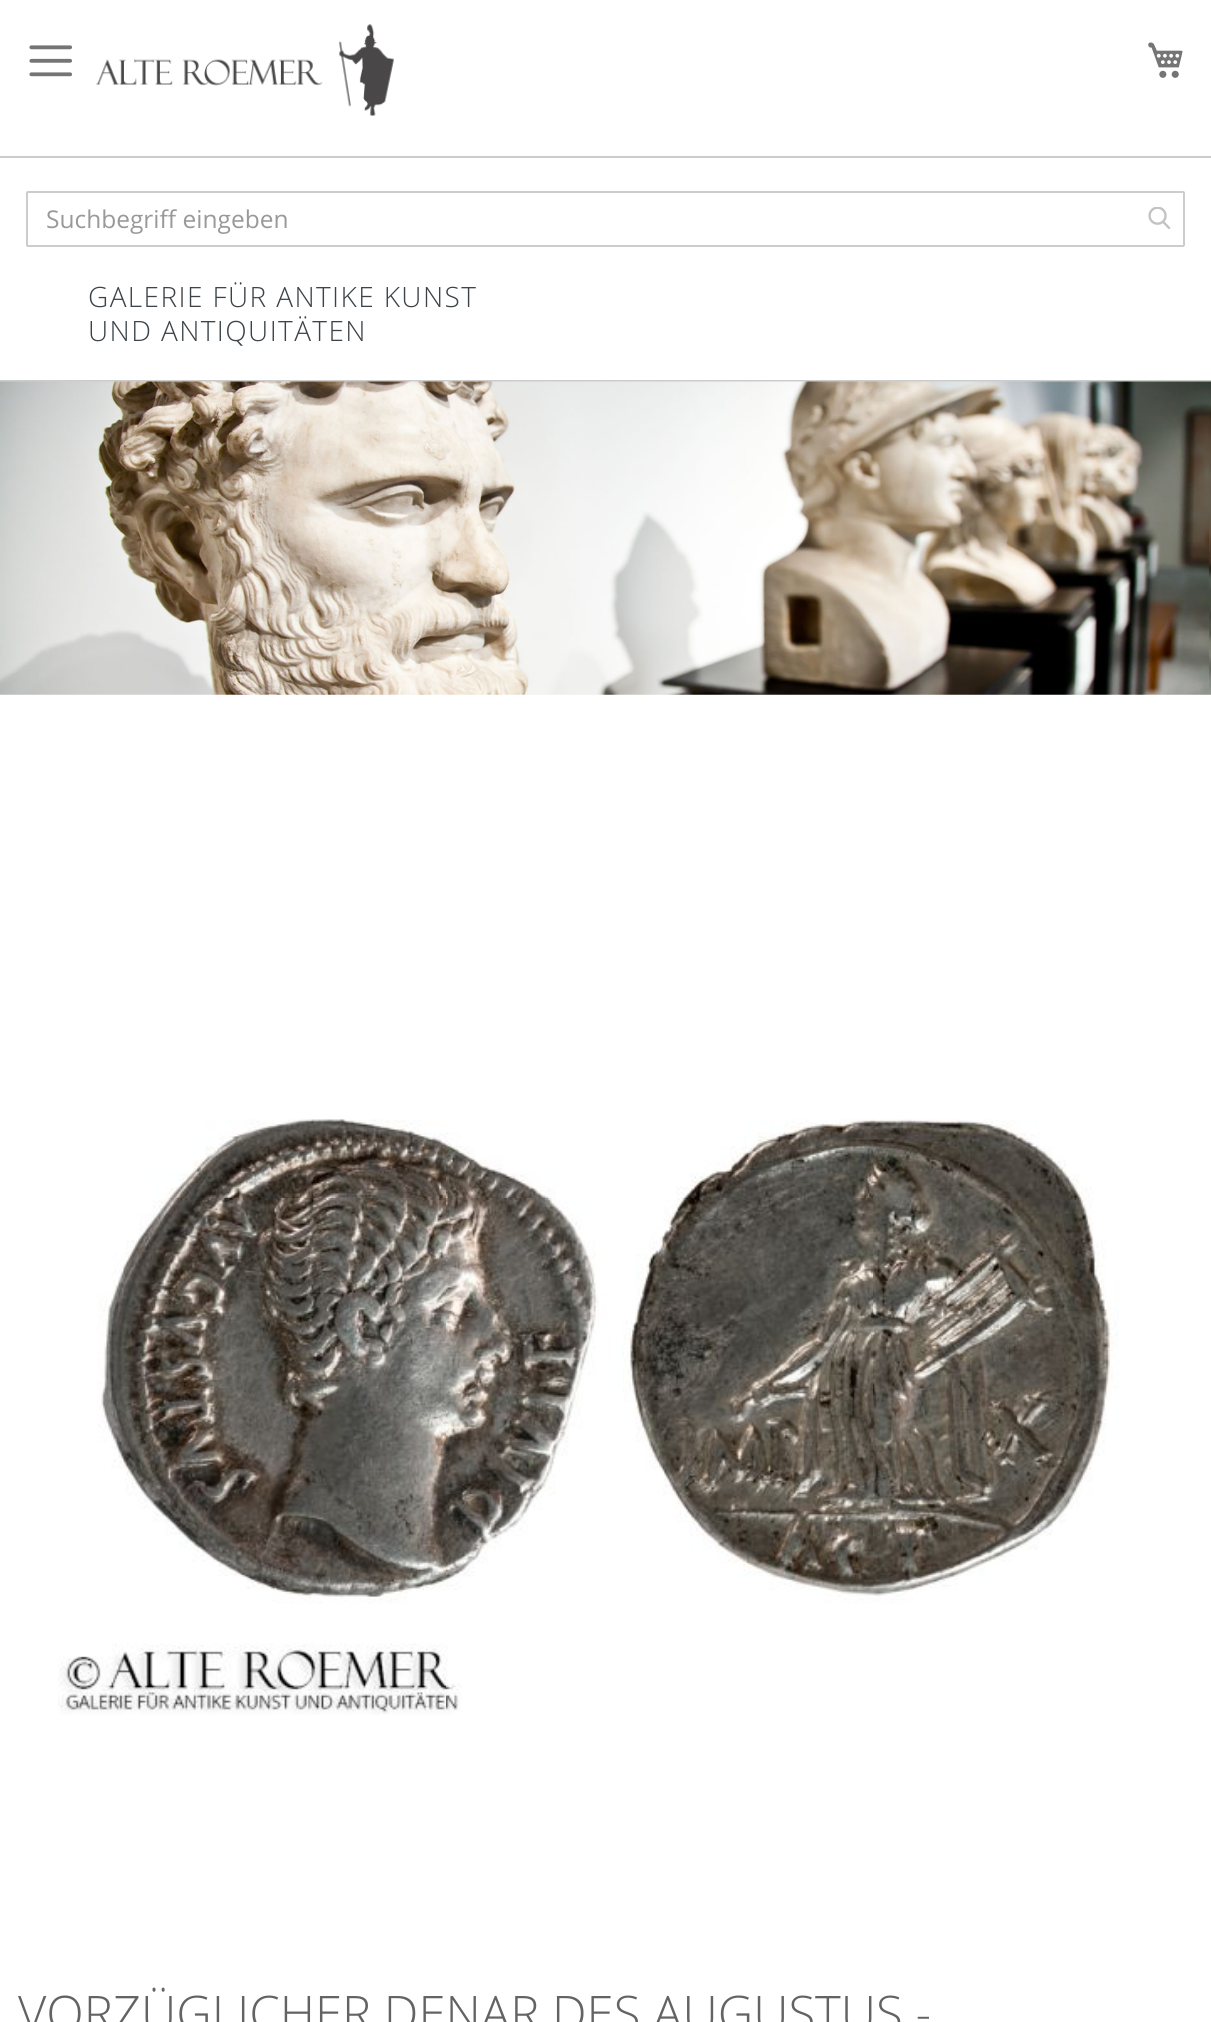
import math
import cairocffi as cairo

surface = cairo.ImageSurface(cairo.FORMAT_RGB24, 1211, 2022)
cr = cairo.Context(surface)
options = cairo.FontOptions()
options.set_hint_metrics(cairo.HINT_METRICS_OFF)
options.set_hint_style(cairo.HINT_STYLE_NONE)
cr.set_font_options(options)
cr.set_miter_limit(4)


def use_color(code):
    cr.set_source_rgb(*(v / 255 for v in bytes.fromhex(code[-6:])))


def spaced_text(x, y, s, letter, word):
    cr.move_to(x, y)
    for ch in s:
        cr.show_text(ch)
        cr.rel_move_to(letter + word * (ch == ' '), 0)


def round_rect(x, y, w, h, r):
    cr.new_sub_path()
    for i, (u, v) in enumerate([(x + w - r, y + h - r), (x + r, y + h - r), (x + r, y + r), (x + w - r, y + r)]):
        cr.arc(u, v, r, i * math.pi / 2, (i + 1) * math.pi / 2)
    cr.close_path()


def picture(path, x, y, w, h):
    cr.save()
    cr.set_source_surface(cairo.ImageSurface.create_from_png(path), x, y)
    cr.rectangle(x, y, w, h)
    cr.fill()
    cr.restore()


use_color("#ffffff")
cr.paint()
use_color("#cccccc")
cr.rectangle(0, 380, 1211, 2)
cr.fill()
picture("img1.png", 29, 45, 44, 32)
picture("img2.png", 96, 24, 298, 92)
picture("img3.png", 1148, 42, 35, 36)
cr.rectangle(0, 156, 1211, 2)
cr.fill()
round_rect(27, 192, 1157, 54, 1)
cr.stroke()
cr.select_font_face("Open Sans")
cr.set_font_size(24.5)
use_color("#999999")
cr.move_to(46, 228)
cr.show_text("Suchbegriff eingeben")
picture("img4.png", 1148, 207, 23, 22)
cr.select_font_face("Open Sans Light")
cr.set_font_size(28)
use_color("#3b4348")
spaced_text(88, 307, "GALERIE FÜR ANTIKE KUNST", 1.4, 0)
spaced_text(88, 341, "UND ANTIQUITÄTEN", 1.4, 0)
picture("img5.png", 0, 381, 1211, 314)
picture("img6.png", 58, 1119, 1061, 596)
cr.set_font_size(49)
use_color("#636363")
cr.move_to(18, 2031)
cr.show_text("VORZÜGLICHER DENAR DES AUGUSTUS -")
surface.write_to_png("result.png")
